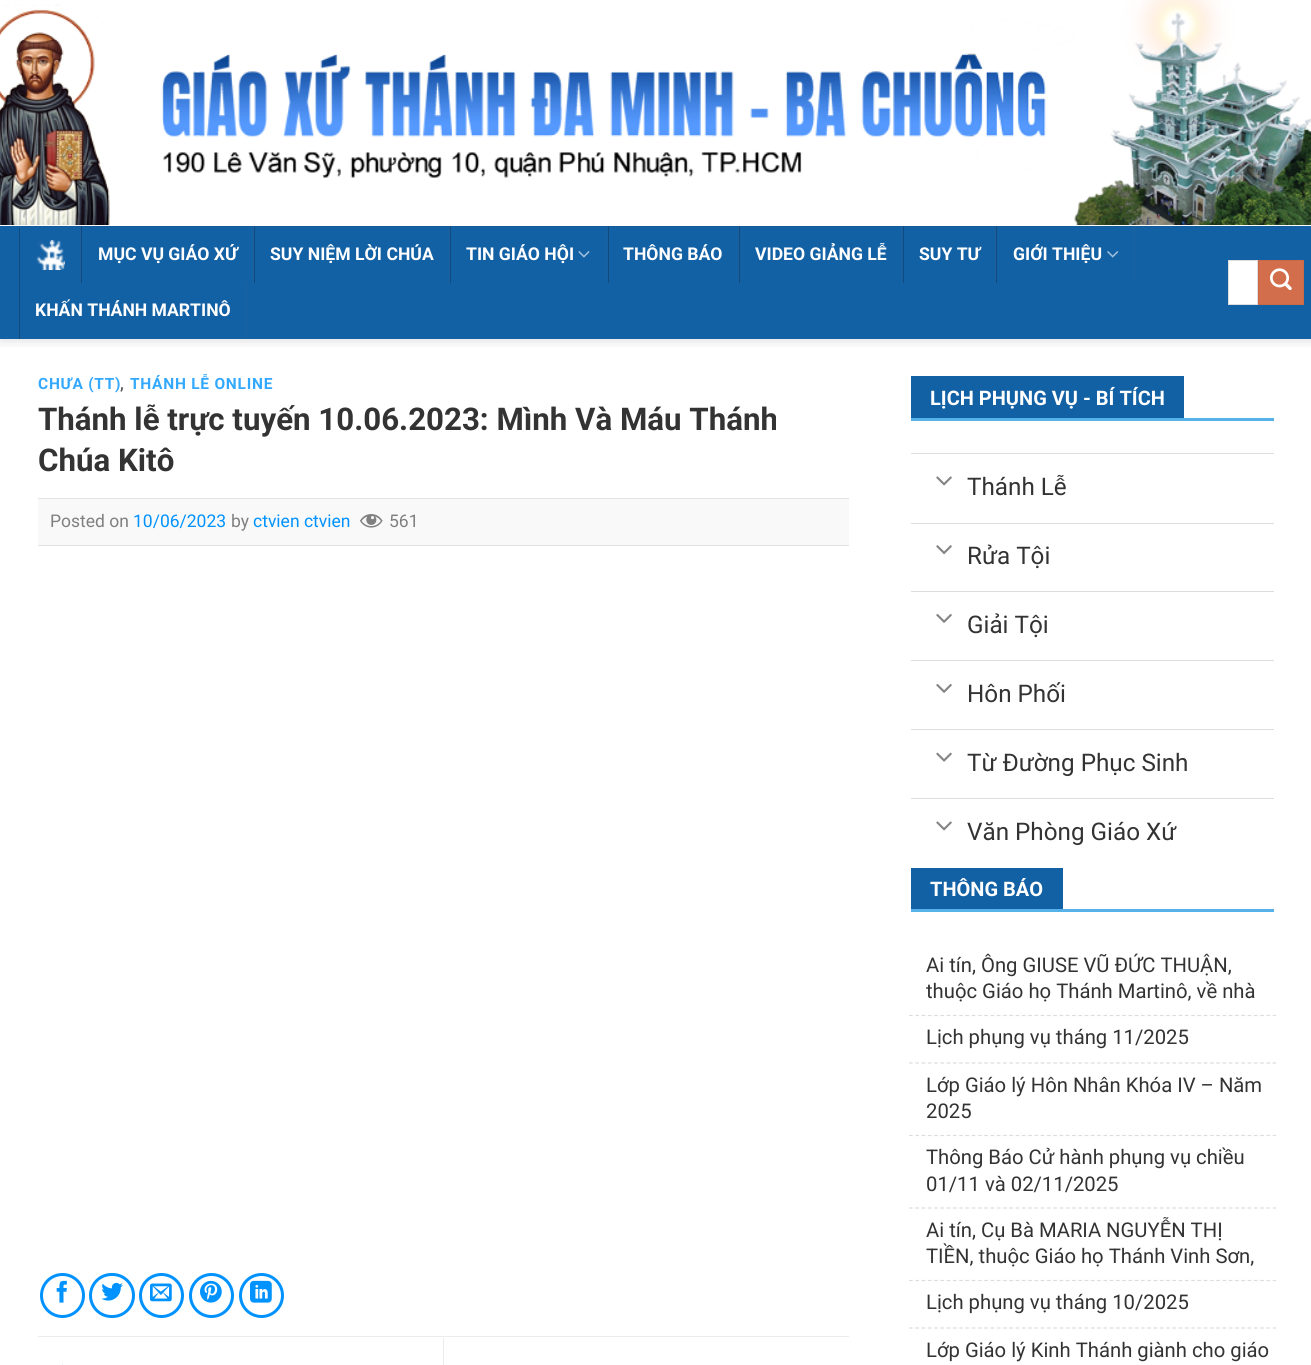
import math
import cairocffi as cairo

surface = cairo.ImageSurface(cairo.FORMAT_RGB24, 1311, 1365)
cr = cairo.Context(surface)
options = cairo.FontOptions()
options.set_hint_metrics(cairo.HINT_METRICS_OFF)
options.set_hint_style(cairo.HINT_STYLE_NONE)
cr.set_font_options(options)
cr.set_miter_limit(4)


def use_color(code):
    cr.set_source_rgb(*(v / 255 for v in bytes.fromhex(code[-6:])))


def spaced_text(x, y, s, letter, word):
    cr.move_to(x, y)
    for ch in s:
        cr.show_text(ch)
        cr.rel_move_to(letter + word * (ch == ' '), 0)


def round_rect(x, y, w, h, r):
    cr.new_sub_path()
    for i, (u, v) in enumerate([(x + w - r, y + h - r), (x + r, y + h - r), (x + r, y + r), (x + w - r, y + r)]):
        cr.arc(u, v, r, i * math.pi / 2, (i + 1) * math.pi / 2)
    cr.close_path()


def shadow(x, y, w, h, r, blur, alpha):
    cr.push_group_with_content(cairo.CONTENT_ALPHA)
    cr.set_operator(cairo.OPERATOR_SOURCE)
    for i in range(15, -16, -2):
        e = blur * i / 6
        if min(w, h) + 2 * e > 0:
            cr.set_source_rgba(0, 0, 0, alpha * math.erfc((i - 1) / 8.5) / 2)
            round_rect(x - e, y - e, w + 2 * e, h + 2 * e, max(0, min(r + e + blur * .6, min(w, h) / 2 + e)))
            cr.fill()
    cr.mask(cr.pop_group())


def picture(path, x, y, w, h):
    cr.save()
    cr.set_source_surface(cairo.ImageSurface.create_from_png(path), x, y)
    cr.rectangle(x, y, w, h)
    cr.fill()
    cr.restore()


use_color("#ffffff")
cr.paint()
cr.save()
cr.rectangle(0, 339, 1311, 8)
cr.clip()
use_color("#000000")
shadow(1, 1, 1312, 339, 0, 6, 0.15)
cr.restore()
picture("img1.png", 0, 0, 1311, 225)
use_color("#1361a5")
cr.rectangle(0, 226, 1311, 113)
cr.fill()
use_color("#165c9a")
cr.rectangle(19, 226, 1274, 1)
cr.fill()
use_color("#1d609e")
cr.rectangle(80, 228, 1, 55)
cr.fill()
use_color("#114a7f")
cr.rectangle(19, 228, 1, 111)
cr.fill()
picture("img2.png", 36, 240, 29, 30)
use_color("#1d609e")
cr.rectangle(253, 226, 1, 57)
cr.fill()
use_color("#1f5c93")
cr.rectangle(253, 226, 1, 1)
cr.fill()
use_color("#114a7f")
cr.rectangle(81, 226, 1, 57)
cr.fill()
use_color("#144877")
cr.rectangle(81, 226, 1, 1)
cr.fill()
cr.select_font_face("Roboto", cairo.FONT_SLANT_NORMAL, cairo.FONT_WEIGHT_BOLD)
cr.set_font_size(17.6)
use_color("#ffffff")
cr.move_to(98, 260)
cr.show_text("MỤC VỤ GIÁO XỨ")
use_color("#1d609e")
cr.rectangle(449, 226, 1, 57)
cr.fill()
use_color("#1f5c93")
cr.rectangle(449, 226, 1, 1)
cr.fill()
use_color("#114a7f")
cr.rectangle(254, 226, 1, 57)
cr.fill()
use_color("#144877")
cr.rectangle(254, 226, 1, 1)
cr.fill()
use_color("#ffffff")
cr.move_to(270, 260)
cr.show_text("SUY NIỆM LỜI CHÚA")
use_color("#1d609e")
cr.rectangle(606, 226, 1, 57)
cr.fill()
use_color("#1f5c93")
cr.rectangle(606, 226, 1, 1)
cr.fill()
use_color("#114a7f")
cr.rectangle(450, 226, 1, 57)
cr.fill()
use_color("#144877")
cr.rectangle(450, 226, 1, 1)
cr.fill()
use_color("#ffffff")
cr.move_to(466, 260)
cr.show_text("TIN GIÁO HỘI")
picture("img3.png", 578, 251, 12, 7)
use_color("#1d609e")
cr.rectangle(738, 226, 1, 57)
cr.fill()
use_color("#1f5c93")
cr.rectangle(738, 226, 1, 1)
cr.fill()
use_color("#114a7f")
cr.rectangle(608, 226, 1, 57)
cr.fill()
use_color("#144877")
cr.rectangle(608, 226, 1, 1)
cr.fill()
use_color("#ffffff")
cr.move_to(623, 260)
cr.show_text("THÔNG BÁO")
use_color("#1d609e")
cr.rectangle(901, 226, 1, 57)
cr.fill()
use_color("#1f5c93")
cr.rectangle(901, 226, 1, 1)
cr.fill()
use_color("#114a7f")
cr.rectangle(739, 226, 1, 57)
cr.fill()
use_color("#144877")
cr.rectangle(739, 226, 1, 1)
cr.fill()
use_color("#ffffff")
cr.move_to(755, 260)
cr.show_text("VIDEO GIẢNG LỄ")
use_color("#1d609e")
cr.rectangle(995, 226, 1, 57)
cr.fill()
use_color("#1f5c93")
cr.rectangle(995, 226, 1, 1)
cr.fill()
use_color("#114a7f")
cr.rectangle(903, 226, 1, 57)
cr.fill()
use_color("#144877")
cr.rectangle(903, 226, 1, 1)
cr.fill()
use_color("#ffffff")
cr.move_to(919, 260)
cr.show_text("SUY TƯ")
use_color("#1d609e")
cr.rectangle(1134, 226, 1, 57)
cr.fill()
use_color("#1f5c93")
cr.rectangle(1134, 226, 1, 1)
cr.fill()
use_color("#114a7f")
cr.rectangle(996, 226, 1, 57)
cr.fill()
use_color("#144877")
cr.rectangle(996, 226, 1, 1)
cr.fill()
use_color("#ffffff")
cr.move_to(1013, 260)
cr.show_text("GIỚI THIỆU")
picture("img4.png", 1107, 251, 12, 7)
use_color("#1d609e")
cr.rectangle(246, 283, 1, 56)
cr.fill()
use_color("#ffffff")
cr.move_to(35, 316)
cr.show_text("KHẤN THÁNH MARTINÔ")
cr.rectangle(1228.5, 260.5, 29, 44)
cr.fill_preserve()
use_color("#dddddd")
cr.set_line_width(1)
cr.stroke()
use_color("#d26e4b")
cr.rectangle(1258.5, 260.5, 45, 44)
cr.fill_preserve()
use_color("#c86947")
cr.stroke()
picture("img5.png", 1270, 268, 22, 23)
cr.set_font_size(15.5)
use_color("#33a8ff")
spaced_text(38, 389, "CHƯA (TT)", 0.75, 0)
use_color("#5c5c5c")
spaced_text(120, 389, ",", 0.75, 0)
use_color("#33a8ff")
spaced_text(130, 389, "THÁNH LỄ ONLINE", 0.75, 0)
cr.set_font_size(31.25)
use_color("#333333")
cr.move_to(38, 430)
cr.show_text("Thánh lễ trực tuyến 10.06.2023: Mình Và Máu Thánh")
cr.move_to(38, 471)
cr.show_text("Chúa Kitô")
use_color("#f9f9f9")
cr.rectangle(38, 499, 811, 46)
cr.fill()
use_color("#e2e2e2")
cr.rectangle(38, 498, 811, 1)
cr.fill()
cr.rectangle(38, 545, 811, 1)
cr.fill()
cr.select_font_face("Roboto")
cr.set_font_size(17.5)
use_color("#808080")
cr.move_to(50, 527)
cr.show_text("Posted on")
use_color("#0092ff")
cr.move_to(133, 527)
cr.show_text("10/06/2023")
use_color("#808080")
cr.move_to(231, 527)
cr.show_text("by")
use_color("#0092ff")
cr.move_to(253, 527)
cr.show_text("ctvien ctvien")
picture("img6.png", 360, 514, 23, 14)
use_color("#808080")
cr.move_to(389, 527)
cr.show_text("561")
cr.new_path()
cr.arc(62.5, 1295.5, 21, 0, 2 * math.pi)
use_color("#0092ff")
cr.set_line_width(3)
cr.stroke()
picture("img7.png", 56, 1280, 11, 23)
round_rect(90.5, 1274.5, 43, 42, 21)
cr.stroke()
picture("img8.png", 101, 1282, 22, 19)
cr.arc(161.5, 1295.5, 21, 0, 2 * math.pi)
cr.stroke()
picture("img9.png", 150, 1283, 22, 19)
cr.arc(211.5, 1295.5, 21, 0, 2 * math.pi)
cr.stroke()
picture("img10.png", 200, 1280, 22, 23)
cr.arc(261.5, 1295.5, 21, 0, 2 * math.pi)
cr.stroke()
picture("img11.png", 250, 1280, 22, 23)
use_color("#ececec")
cr.rectangle(38, 1336, 811, 1)
cr.fill()
picture("img12.png", 62, 1364, 1, 1)
cr.rectangle(443, 1338, 1, 27)
cr.fill()
use_color("#57b2e9")
cr.rectangle(911, 418, 363, 3)
cr.fill()
use_color("#1261a5")
cr.rectangle(911, 376, 273, 42)
cr.fill()
cr.select_font_face("Roboto", cairo.FONT_SLANT_NORMAL, cairo.FONT_WEIGHT_BOLD)
cr.set_font_size(20)
use_color("#ffffff")
cr.move_to(930, 405)
cr.show_text("LỊCH PHỤNG VỤ - BÍ TÍCH")
use_color("#dddddd")
cr.rectangle(911, 453, 363, 1)
cr.fill()
picture("img13.png", 936, 476, 16, 10)
cr.select_font_face("Roboto")
cr.set_font_size(24.25)
use_color("#333333")
cr.move_to(967, 495)
cr.show_text("Thánh Lễ")
use_color("#dddddd")
cr.rectangle(911, 523, 363, 1)
cr.fill()
picture("img14.png", 936, 545, 16, 10)
use_color("#333333")
cr.move_to(967, 564)
cr.show_text("Rửa Tội")
use_color("#dddddd")
cr.rectangle(911, 591, 363, 1)
cr.fill()
picture("img15.png", 936, 613, 16, 10)
use_color("#333333")
cr.move_to(967, 633)
cr.show_text("Giải Tội")
use_color("#dddddd")
cr.rectangle(911, 660, 363, 1)
cr.fill()
picture("img15.png", 936, 683, 16, 10)
use_color("#333333")
cr.move_to(967, 702)
cr.show_text("Hôn Phối")
use_color("#dddddd")
cr.rectangle(911, 729, 363, 1)
cr.fill()
picture("img16.png", 936, 752, 16, 10)
use_color("#333333")
cr.move_to(967, 771)
cr.show_text("Từ Đường Phục Sinh")
use_color("#dddddd")
cr.rectangle(911, 798, 363, 1)
cr.fill()
picture("img13.png", 936, 821, 16, 10)
use_color("#333333")
cr.move_to(967, 840)
cr.show_text("Văn Phòng Giáo Xứ")
use_color("#57b2e9")
cr.rectangle(911, 909, 363, 3)
cr.fill()
use_color("#1261a5")
cr.rectangle(911, 868, 152, 41)
cr.fill()
cr.select_font_face("Roboto", cairo.FONT_SLANT_NORMAL, cairo.FONT_WEIGHT_BOLD)
cr.set_font_size(20)
use_color("#ffffff")
cr.move_to(930, 896)
cr.show_text("THÔNG BÁO")
cr.new_path()
cr.move_to(909, 1015.5)
cr.line_to(1276, 1015.5)
use_color("#dddddd")
cr.set_line_width(1.2)
cr.set_dash([3.75, 2.52])
cr.stroke()
cr.select_font_face("Roboto")
cr.set_font_size(20.25)
use_color("#333333")
cr.move_to(926, 972)
cr.show_text("Ai tín, Ông GIUSE VŨ ĐỨC THUẬN,")
cr.move_to(926, 998)
cr.show_text("thuộc Giáo họ Thánh Martinô, về nhà")
cr.new_path()
cr.move_to(909, 1063)
cr.line_to(1276, 1063)
use_color("#dddddd")
cr.stroke()
use_color("#333333")
cr.move_to(926, 1044)
cr.show_text("Lịch phụng vụ tháng 11/2025")
cr.new_path()
cr.move_to(909, 1135.5)
cr.line_to(1276, 1135.5)
use_color("#dddddd")
cr.stroke()
use_color("#333333")
cr.move_to(926, 1092)
cr.show_text("Lớp Giáo lý Hôn Nhân Khóa IV – Năm")
cr.move_to(926, 1118)
cr.show_text("2025")
cr.new_path()
cr.move_to(909, 1208)
cr.line_to(1276, 1208)
use_color("#dddddd")
cr.stroke()
use_color("#333333")
cr.move_to(926, 1164)
cr.show_text("Thông Báo Cử hành phụng vụ chiều")
cr.move_to(926, 1191)
cr.show_text("01/11 và 02/11/2025")
cr.new_path()
cr.move_to(909, 1280.5)
cr.line_to(1276, 1280.5)
use_color("#dddddd")
cr.stroke()
use_color("#333333")
cr.move_to(926, 1237)
cr.show_text("Ai tín, Cụ Bà MARIA NGUYỄN THỊ")
cr.move_to(926, 1263)
cr.show_text("TIỀN, thuộc Giáo họ Thánh Vinh Sơn,")
cr.new_path()
cr.move_to(909, 1328)
cr.line_to(1276, 1328)
use_color("#dddddd")
cr.stroke()
use_color("#333333")
cr.move_to(926, 1309)
cr.show_text("Lịch phụng vụ tháng 10/2025")
cr.move_to(926, 1357)
cr.show_text("Lớp Giáo lý Kinh Thánh giành cho giáo")
surface.write_to_png("result.png")
